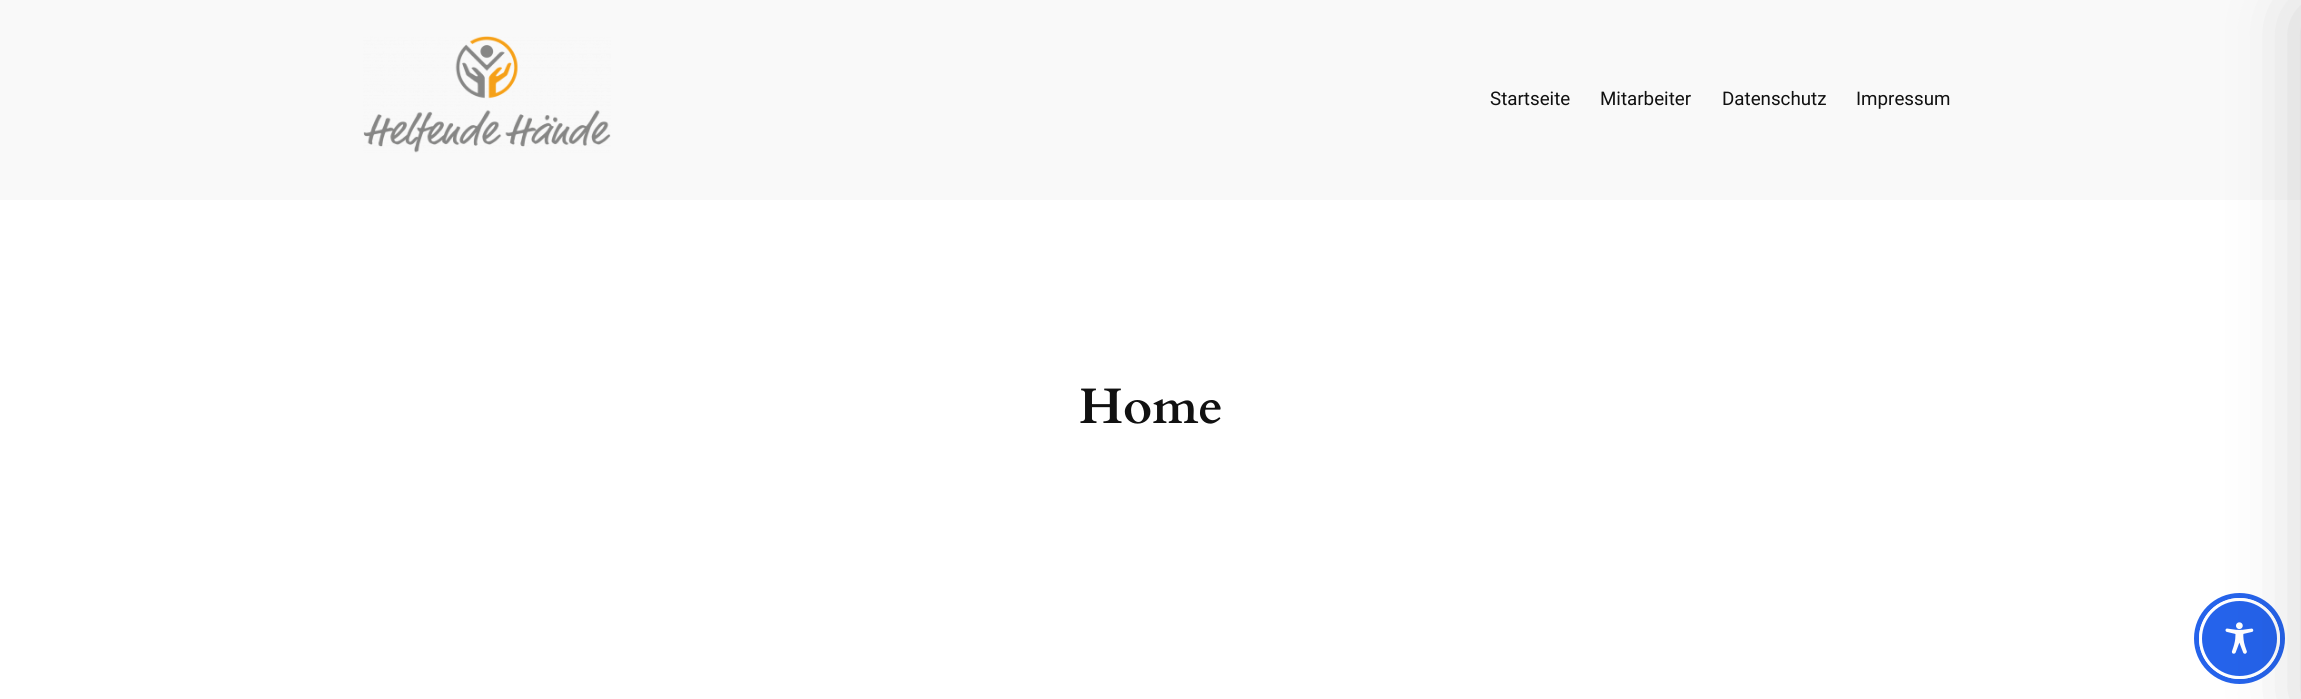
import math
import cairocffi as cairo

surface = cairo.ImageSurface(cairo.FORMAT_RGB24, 2301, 699)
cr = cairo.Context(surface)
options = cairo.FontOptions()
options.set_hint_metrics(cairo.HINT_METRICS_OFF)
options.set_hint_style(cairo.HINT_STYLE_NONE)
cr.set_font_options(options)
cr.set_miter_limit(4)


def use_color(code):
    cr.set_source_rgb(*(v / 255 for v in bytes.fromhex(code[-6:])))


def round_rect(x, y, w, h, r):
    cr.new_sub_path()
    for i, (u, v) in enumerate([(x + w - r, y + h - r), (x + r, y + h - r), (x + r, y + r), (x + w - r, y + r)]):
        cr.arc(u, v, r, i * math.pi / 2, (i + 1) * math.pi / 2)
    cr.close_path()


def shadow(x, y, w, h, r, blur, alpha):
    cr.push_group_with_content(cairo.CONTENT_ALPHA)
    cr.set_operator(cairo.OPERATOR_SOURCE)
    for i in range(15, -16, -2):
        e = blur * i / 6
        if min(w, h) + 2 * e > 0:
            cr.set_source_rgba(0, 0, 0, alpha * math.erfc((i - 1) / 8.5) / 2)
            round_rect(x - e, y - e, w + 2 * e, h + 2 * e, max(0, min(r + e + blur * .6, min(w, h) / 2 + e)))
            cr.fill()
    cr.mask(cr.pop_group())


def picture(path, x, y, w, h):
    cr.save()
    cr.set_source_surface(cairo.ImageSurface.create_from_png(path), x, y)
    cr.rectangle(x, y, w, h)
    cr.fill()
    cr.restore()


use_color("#ffffff")
cr.paint()
use_color("#f9f9f9")
cr.rectangle(0, 0, 2301, 200)
cr.fill()
picture("img1.png", 363, 36, 248, 117)
cr.select_font_face("Roboto")
cr.set_font_size(18.75)
use_color("#111111")
cr.move_to(1490, 105)
cr.show_text("Startseite")
cr.move_to(1600, 105)
cr.show_text("Mitarbeiter")
cr.move_to(1722, 105)
cr.show_text("Datenschutz")
cr.move_to(1856, 105)
cr.show_text("Impressum")
cr.select_font_face("Cardo", cairo.FONT_SLANT_NORMAL, cairo.FONT_WEIGHT_BOLD)
cr.set_font_size(50)
cr.move_to(1079, 423)
cr.show_text("Home")
cr.new_path()
cr.arc(2239.5, 638.5, 43, 0, 2 * math.pi)
use_color("#2563eb")
cr.set_line_width(5)
cr.stroke()
cr.arc(2239.5, 638.5, 39, 0, 2 * math.pi)
cr.fill_preserve()
use_color("#ffffff")
cr.set_line_width(3)
cr.stroke()
picture("img2.png", 2225, 622, 29, 32)
use_color("#000000")
shadow(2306, 13, 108, 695, 0, 37.5, 0.2)
surface.write_to_png("result.png")
